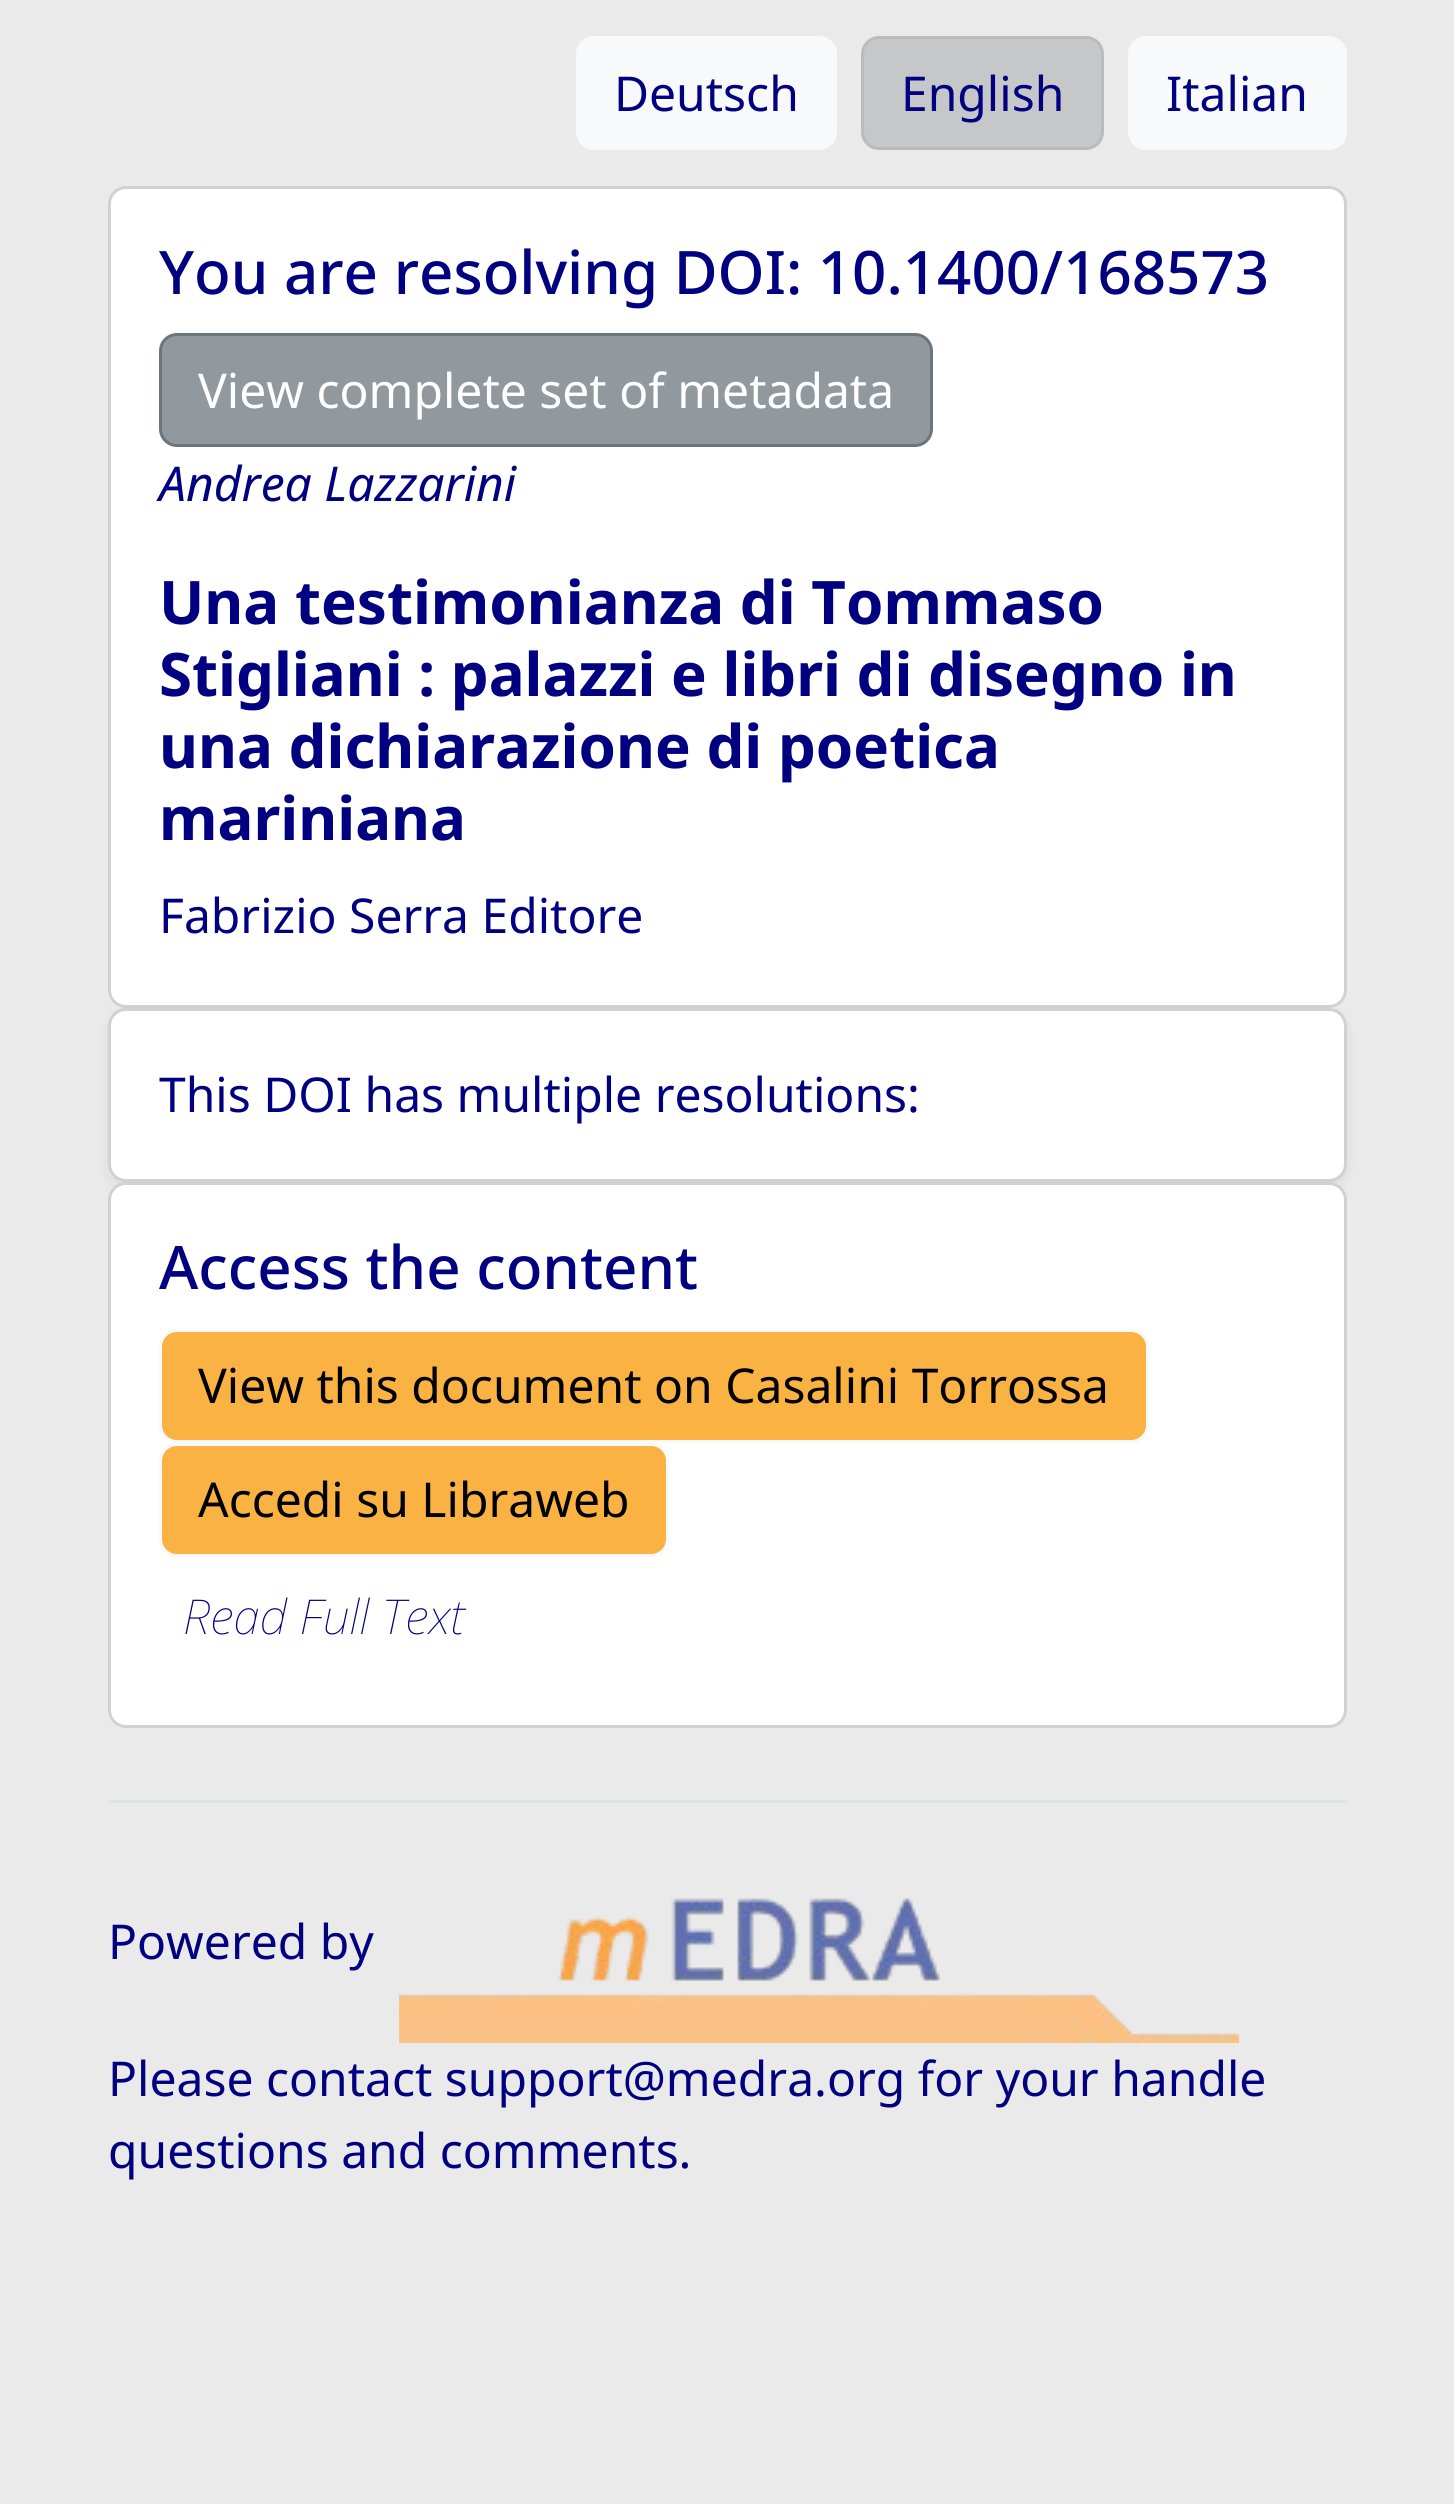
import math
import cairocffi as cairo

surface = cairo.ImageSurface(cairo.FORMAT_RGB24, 1454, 2504)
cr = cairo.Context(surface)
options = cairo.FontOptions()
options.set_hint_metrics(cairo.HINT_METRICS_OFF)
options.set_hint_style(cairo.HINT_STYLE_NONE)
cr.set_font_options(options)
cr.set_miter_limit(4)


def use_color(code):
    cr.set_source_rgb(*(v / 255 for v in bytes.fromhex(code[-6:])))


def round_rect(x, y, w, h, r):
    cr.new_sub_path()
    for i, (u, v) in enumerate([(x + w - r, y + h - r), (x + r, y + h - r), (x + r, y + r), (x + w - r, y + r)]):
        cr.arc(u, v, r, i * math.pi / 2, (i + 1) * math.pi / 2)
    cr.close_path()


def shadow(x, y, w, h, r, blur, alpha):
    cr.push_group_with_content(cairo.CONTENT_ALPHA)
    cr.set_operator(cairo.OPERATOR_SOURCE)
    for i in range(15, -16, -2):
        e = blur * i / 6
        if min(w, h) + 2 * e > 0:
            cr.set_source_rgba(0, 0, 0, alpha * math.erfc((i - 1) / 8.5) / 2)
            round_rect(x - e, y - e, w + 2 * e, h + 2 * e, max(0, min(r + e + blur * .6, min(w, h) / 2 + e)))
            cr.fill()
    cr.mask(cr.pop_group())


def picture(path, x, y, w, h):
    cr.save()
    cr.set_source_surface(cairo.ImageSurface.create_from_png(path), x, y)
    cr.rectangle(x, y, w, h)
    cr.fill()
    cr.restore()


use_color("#eaeaea")
cr.paint()
use_color("#f8f9fa")
round_rect(577.5, 37.5, 258, 111, 16.5)
cr.fill_preserve()
cr.set_line_width(3)
cr.stroke()
cr.select_font_face("Noto Sans")
cr.set_font_size(48)
use_color("#000080")
cr.move_to(614, 111)
cr.show_text("Deutsch")
use_color("#c6c7c8")
round_rect(862.5, 37.5, 240, 111, 16.5)
cr.fill_preserve()
use_color("#babbbc")
cr.stroke()
use_color("#000080")
cr.move_to(901, 111)
cr.show_text("English")
use_color("#f8f9fa")
round_rect(1129.5, 37.5, 216, 111, 16.5)
cr.fill_preserve()
cr.stroke()
use_color("#000080")
cr.move_to(1166, 111)
cr.show_text("Italian")
use_color("#ffffff")
round_rect(108, 186, 1239, 822, 18)
cr.fill()
round_rect(109.5, 187.5, 1236, 819, 16.5)
cr.set_source_rgba(0, 0, 0, 0.18)
cr.stroke()
cr.select_font_face("Noto Sans Medium")
cr.set_font_size(60)
use_color("#000080")
cr.move_to(159, 294)
cr.show_text("You are resolving DOI: 10.1400/168573")
use_color("#91989e")
round_rect(160.5, 334.5, 771, 111, 16.5)
cr.fill_preserve()
use_color("#6c757d")
cr.stroke()
cr.select_font_face("Noto Sans")
cr.set_font_size(48)
use_color("#ffffff")
cr.move_to(198, 408)
cr.show_text("View complete set of metadata")
cr.select_font_face("Noto Sans", cairo.FONT_SLANT_ITALIC)
use_color("#000080")
cr.move_to(159, 501)
cr.show_text("Andrea Lazzarini")
cr.select_font_face("Noto Sans", cairo.FONT_SLANT_NORMAL, cairo.FONT_WEIGHT_BOLD)
cr.set_font_size(60)
cr.move_to(159, 624)
cr.show_text("Una testimonianza di Tommaso")
cr.move_to(159, 696)
cr.show_text("Stigliani : palazzi e libri di disegno in")
cr.move_to(159, 768)
cr.show_text("una dichiarazione di poetica")
cr.move_to(159, 840)
cr.show_text("mariniana")
cr.select_font_face("Noto Sans")
cr.set_font_size(48)
cr.move_to(159, 933)
cr.show_text("Fabrizio Serra Editore")
use_color("#000000")
shadow(108, 1014, 1239, 174, 18, 6, 0.07)
use_color("#ffffff")
round_rect(108, 1008, 1239, 174, 18)
cr.fill()
round_rect(109.5, 1009.5, 1236, 171, 16.5)
cr.set_source_rgba(0, 0, 0, 0.18)
cr.stroke()
use_color("#000080")
cr.move_to(159, 1112)
cr.show_text("This DOI has multiple resolutions:")
use_color("#ffffff")
round_rect(108, 1182, 1239, 546, 18)
cr.fill()
round_rect(109.5, 1183.5, 1236, 543, 16.5)
cr.set_source_rgba(0, 0, 0, 0.18)
cr.stroke()
cr.select_font_face("Noto Sans Medium")
cr.set_font_size(60)
use_color("#000080")
cr.move_to(159, 1289)
cr.show_text("Access the content")
use_color("#fab242")
round_rect(160.5, 1330.5, 987, 111, 16.5)
cr.fill_preserve()
use_color("#f8f9fa")
cr.stroke()
cr.select_font_face("Noto Sans")
cr.set_font_size(48)
use_color("#000000")
cr.move_to(198, 1403)
cr.show_text("View this document on Casalini Torrossa")
use_color("#fab242")
round_rect(160.5, 1444.5, 507, 111, 16.5)
cr.fill_preserve()
use_color("#f8f9fa")
cr.stroke()
use_color("#000000")
cr.move_to(198, 1517)
cr.show_text("Accedi su Libraweb")
cr.select_font_face("Noto Sans Thin", cairo.FONT_SLANT_ITALIC)
use_color("#000080")
cr.move_to(183, 1634)
cr.show_text("Read Full Text")
use_color("#dee2e6")
cr.rectangle(108, 1800, 1239, 3)
cr.fill()
cr.select_font_face("Noto Sans")
use_color("#000080")
cr.move_to(108, 1959)
cr.show_text("Powered by")
picture("img1.png", 399, 1898, 840, 145)
cr.move_to(108, 2096)
cr.show_text("Please contact support@medra.org for your handle")
cr.move_to(108, 2168)
cr.show_text("questions and comments.")
surface.write_to_png("result.png")
